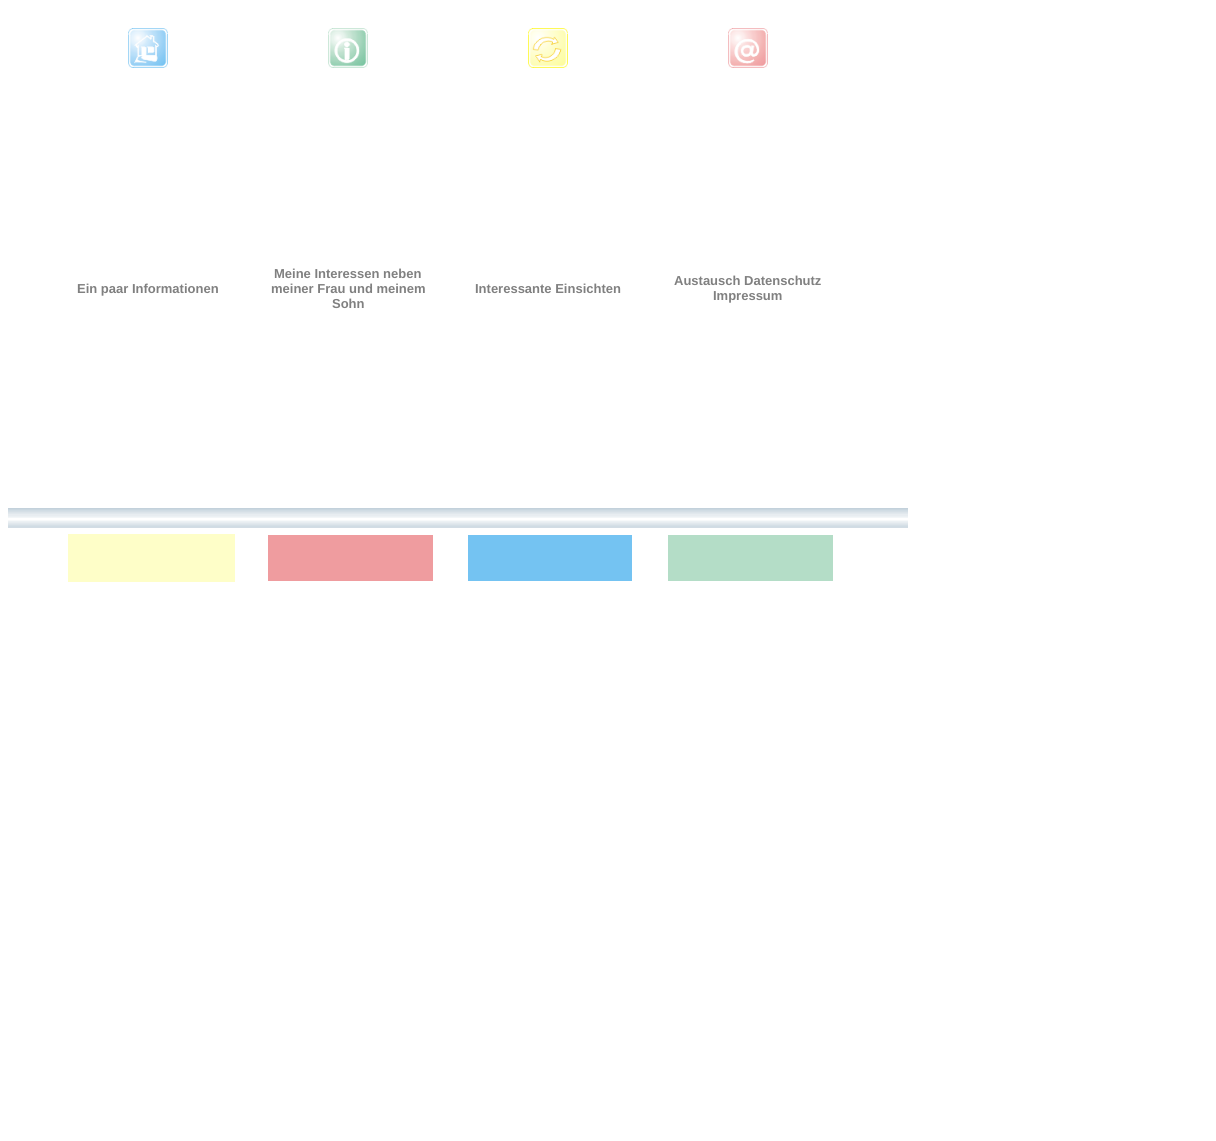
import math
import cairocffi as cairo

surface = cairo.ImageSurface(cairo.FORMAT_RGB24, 1216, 1141)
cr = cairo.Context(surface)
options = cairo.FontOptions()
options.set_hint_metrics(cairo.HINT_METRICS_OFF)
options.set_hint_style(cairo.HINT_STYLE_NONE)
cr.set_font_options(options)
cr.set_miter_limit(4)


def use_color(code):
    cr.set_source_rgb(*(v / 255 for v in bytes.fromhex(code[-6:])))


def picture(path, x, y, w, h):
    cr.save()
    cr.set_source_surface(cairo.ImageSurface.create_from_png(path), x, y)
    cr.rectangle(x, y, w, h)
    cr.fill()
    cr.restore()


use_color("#ffffff")
cr.paint()
picture("img1.png", 128, 28, 40, 40)
picture("img2.png", 328, 28, 40, 40)
picture("img3.png", 528, 28, 40, 40)
picture("img4.png", 728, 28, 40, 40)
cr.select_font_face("Liberation Sans", cairo.FONT_SLANT_NORMAL, cairo.FONT_WEIGHT_BOLD)
cr.set_font_size(13)
use_color("#808080")
cr.move_to(77, 293)
cr.show_text("Ein paar Informationen")
cr.move_to(274, 278)
cr.show_text("Meine Interessen neben")
cr.move_to(271, 293)
cr.show_text("meiner Frau und meinem")
cr.move_to(332, 308)
cr.show_text("Sohn")
cr.move_to(475, 293)
cr.show_text("Interessante Einsichten")
cr.move_to(674, 285)
cr.show_text("Austausch Datenschutz")
cr.move_to(713, 300)
cr.show_text("Impressum")
picture("img5.png", 8, 508, 900, 20)
use_color("#fefec8")
cr.rectangle(68, 534, 167, 48)
cr.fill()
use_color("#ef9c9f")
cr.rectangle(268, 535, 165, 46)
cr.fill()
use_color("#74c3f2")
cr.rectangle(468, 535, 164, 46)
cr.fill()
use_color("#b4ddc7")
cr.rectangle(668, 535, 165, 46)
cr.fill()
surface.write_to_png("result.png")
